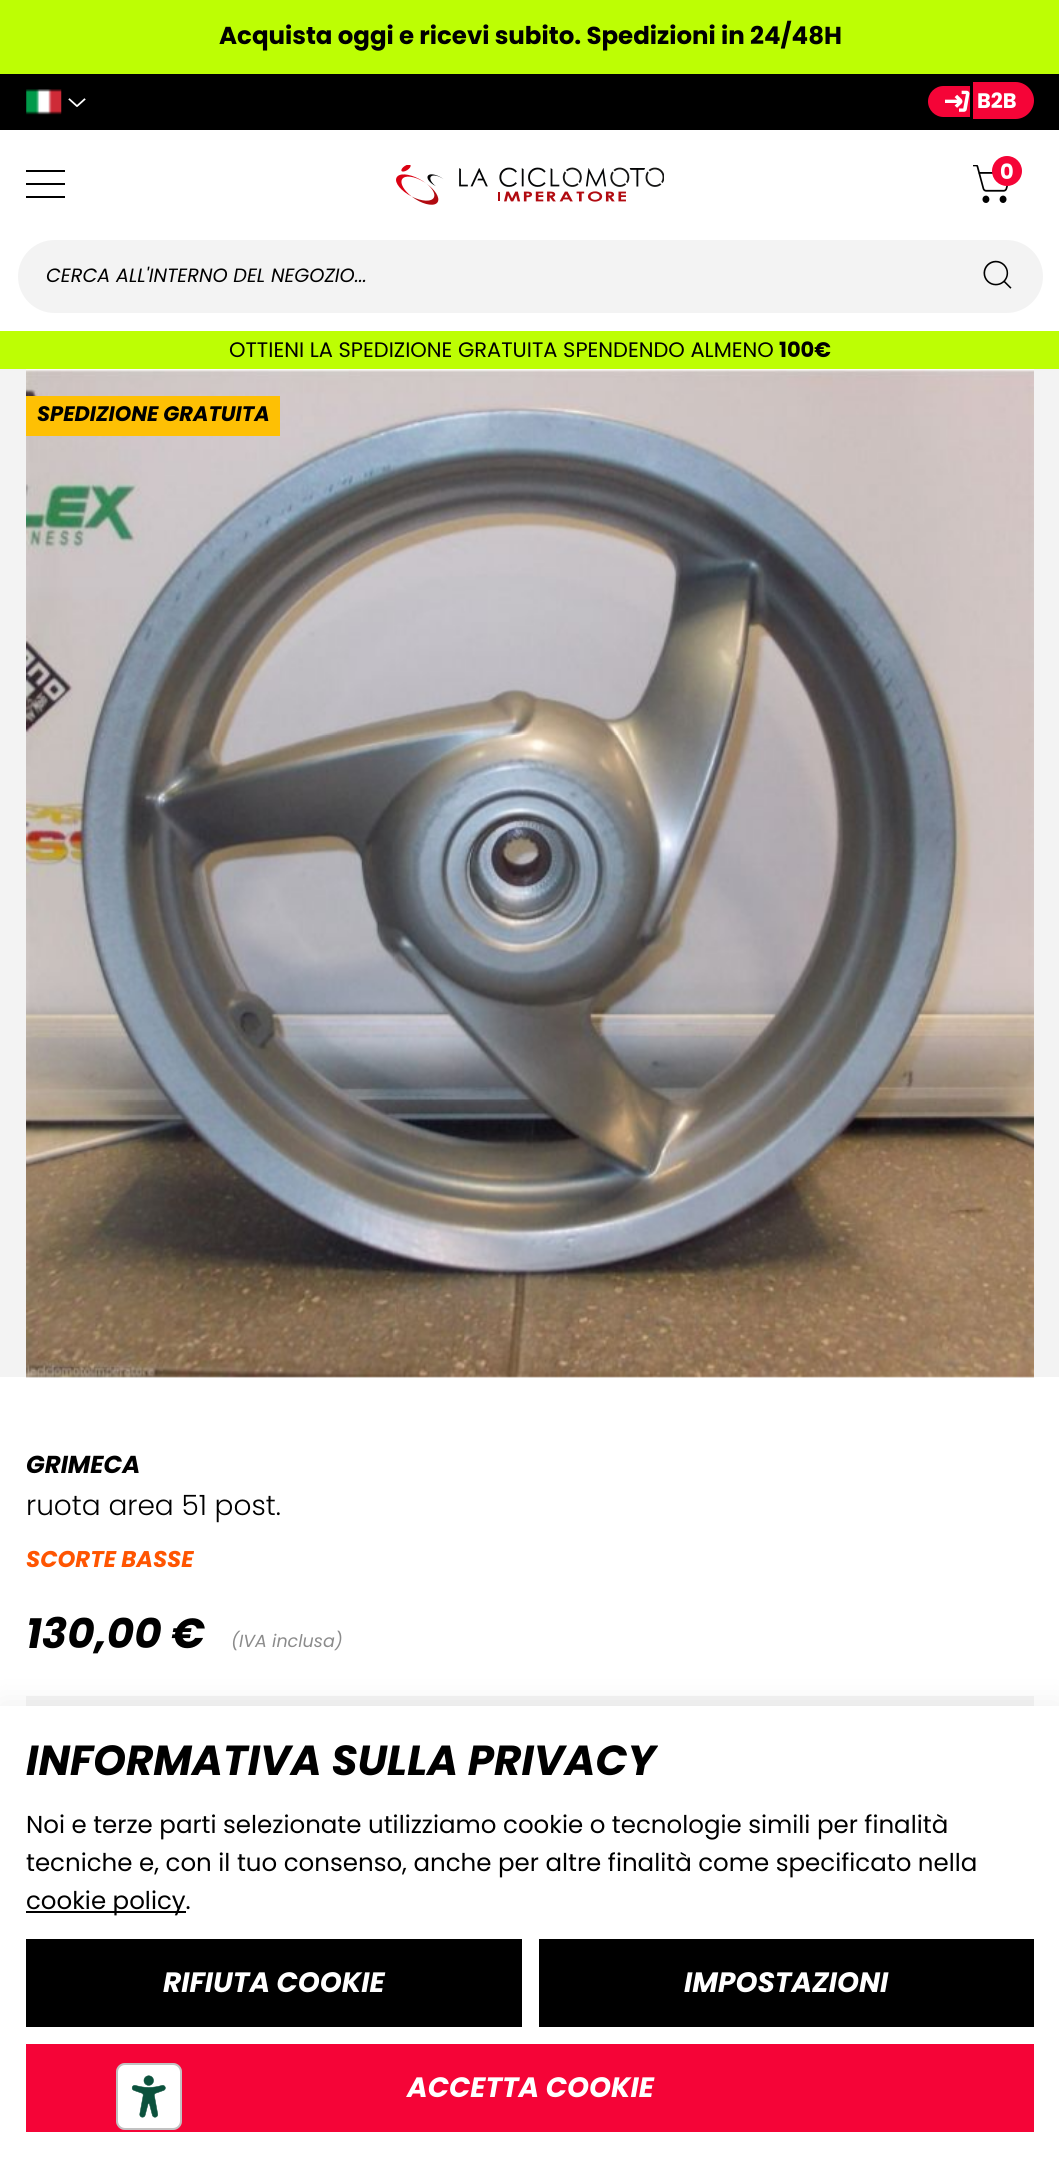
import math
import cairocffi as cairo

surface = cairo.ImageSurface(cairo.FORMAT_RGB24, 1059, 2157)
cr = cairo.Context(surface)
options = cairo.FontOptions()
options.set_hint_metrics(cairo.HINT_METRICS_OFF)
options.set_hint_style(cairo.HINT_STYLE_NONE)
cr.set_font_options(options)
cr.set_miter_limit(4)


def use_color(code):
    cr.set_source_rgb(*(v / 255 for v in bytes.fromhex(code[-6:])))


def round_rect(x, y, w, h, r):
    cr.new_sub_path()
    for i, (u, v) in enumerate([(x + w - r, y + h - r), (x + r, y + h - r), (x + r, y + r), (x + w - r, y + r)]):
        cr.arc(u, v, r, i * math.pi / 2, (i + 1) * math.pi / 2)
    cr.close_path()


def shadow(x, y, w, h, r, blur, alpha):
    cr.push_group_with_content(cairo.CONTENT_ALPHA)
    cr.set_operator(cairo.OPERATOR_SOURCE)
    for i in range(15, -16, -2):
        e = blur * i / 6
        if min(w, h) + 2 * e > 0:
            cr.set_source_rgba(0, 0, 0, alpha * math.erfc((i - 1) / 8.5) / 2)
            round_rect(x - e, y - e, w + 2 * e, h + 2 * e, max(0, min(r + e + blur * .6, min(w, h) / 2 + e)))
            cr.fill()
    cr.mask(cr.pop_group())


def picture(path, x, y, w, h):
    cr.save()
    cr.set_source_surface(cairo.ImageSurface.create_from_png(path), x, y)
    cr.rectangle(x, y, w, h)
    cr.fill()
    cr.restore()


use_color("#ffffff")
cr.paint()
use_color("#bdfe04")
cr.rectangle(0, 0, 1059, 74)
cr.fill()
cr.select_font_face("Poppins", cairo.FONT_SLANT_NORMAL, cairo.FONT_WEIGHT_BOLD)
cr.set_font_size(24.5)
use_color("#000000")
cr.move_to(219, 44)
cr.show_text("Acquista oggi e ricevi subito. Spedizioni in 24/48H")
cr.rectangle(0, 74, 1059, 56)
cr.fill()
picture("img1.png", 26, 89, 36, 26)
picture("img2.png", 68, 98, 18, 9)
use_color("#f50437")
cr.new_path()
cr.move_to(943.5, 86)
cr.line_to(970, 86)
cr.line_to(970, 117)
cr.line_to(943.5, 117)
cr.curve_to(935, 117, 928, 110, 928, 101.5)
cr.curve_to(928, 93, 935, 86, 943.5, 86)
cr.close_path()
cr.fill()
picture("img3.png", 945, 90, 25, 22)
cr.new_path()
cr.move_to(973, 82)
cr.line_to(1015.5, 82)
cr.curve_to(1025.5, 82, 1034, 90.5, 1034, 100.5)
cr.curve_to(1034, 110.5, 1025.5, 119, 1015.5, 119)
cr.line_to(973, 119)
cr.close_path()
cr.fill()
cr.set_font_size(21)
use_color("#ffffff")
cr.move_to(977, 108)
cr.show_text("B2B")
use_color("#000000")
cr.rectangle(26, 170, 39, 2)
cr.fill()
cr.rectangle(26, 183, 39, 2)
cr.fill()
cr.rectangle(26, 196, 39, 2)
cr.fill()
picture("img4.png", 396, 165, 268, 40)
picture("img5.png", 973, 165, 36, 38)
use_color("#f50437")
cr.arc(1007, 171, 15, 0, 2 * math.pi)
cr.fill()
use_color("#ffffff")
cr.move_to(1000, 179)
cr.show_text("0")
use_color("#f3f3f3")
round_rect(19, 241, 1023, 71, 35.5)
cr.fill_preserve()
cr.stroke()
cr.select_font_face("Poppins", cairo.FONT_SLANT_ITALIC)
cr.set_font_size(19.25)
use_color("#000000")
cr.move_to(46, 282)
cr.show_text("CERCA ALL'INTERNO DEL NEGOZIO...")
picture("img6.png", 983, 260, 29, 29)
use_color("#bdfe04")
cr.rectangle(0, 331, 1059, 38)
cr.fill()
cr.select_font_face("Poppins")
cr.set_font_size(21)
use_color("#000000")
cr.move_to(229, 357)
cr.show_text("OTTIENI LA SPEDIZIONE GRATUITA SPENDENDO ALMENO")
cr.select_font_face("Poppins", cairo.FONT_SLANT_NORMAL, cairo.FONT_WEIGHT_BOLD)
cr.move_to(779, 357)
cr.show_text("100€")
use_color("#f3f3f3")
cr.rectangle(0, 369, 1059, 1008)
cr.fill()
picture("img7.png", 26, 369, 1008, 1009)
use_color("#fec004")
cr.rectangle(26, 396, 254, 40)
cr.fill()
cr.select_font_face("Poppins", cairo.FONT_SLANT_ITALIC, cairo.FONT_WEIGHT_BOLD)
use_color("#000000")
cr.move_to(37, 421)
cr.show_text("SPEDIZIONE GRATUITA")
cr.set_font_size(24.5)
cr.move_to(26, 1473)
cr.show_text("GRIMECA")
cr.select_font_face("Poppins Light")
cr.set_font_size(28)
cr.move_to(26, 1515)
cr.show_text("ruota area 51 post.")
cr.select_font_face("Poppins", cairo.FONT_SLANT_ITALIC, cairo.FONT_WEIGHT_BOLD)
cr.set_font_size(22.75)
use_color("#ff5501")
cr.move_to(26, 1567)
cr.show_text("SCORTE BASSE")
cr.set_font_size(42)
use_color("#000000")
cr.move_to(26, 1648)
cr.show_text("130,00 €")
cr.select_font_face("Poppins", cairo.FONT_SLANT_ITALIC)
cr.set_font_size(17.5)
use_color("#8b8b8b")
cr.move_to(231, 1647)
cr.show_text("(IVA inclusa)")
gradient = cairo.LinearGradient(-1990, 1731, 1034, 1731)
gradient.add_color_stop_rgba(0.4, 0.8, 0.8, 0.8, 0.22)
gradient.add_color_stop_rgba(0.5, 1, 1, 1, 1)
gradient.add_color_stop_rgba(0.6, 0.8, 0.8, 0.8, 0.22)
cr.set_source(gradient)
cr.rectangle(26, 1696, 1008, 10)
cr.fill()
use_color("#000000")
shadow(0, 1703, 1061, 451, 0, 16, 0.06)
use_color("#ffffff")
cr.rectangle(0, 1706, 1059, 451)
cr.fill()
cr.select_font_face("Poppins", cairo.FONT_SLANT_ITALIC, cairo.FONT_WEIGHT_BOLD)
cr.set_font_size(42)
use_color("#000000")
cr.move_to(26, 1775)
cr.show_text("INFORMATIVA SULLA PRIVACY")
cr.select_font_face("Poppins")
cr.set_font_size(24.5)
cr.move_to(26, 1833)
cr.show_text("Noi e terze parti selezionate utilizziamo cookie o tecnologie simili per finalità")
cr.move_to(26, 1871)
cr.show_text("tecniche e, con il tuo consenso, anche per altre finalità come specificato nella")
cr.rectangle(26, 1911, 160, 2)
cr.fill()
cr.move_to(26, 1909)
cr.show_text("cookie policy.")
cr.rectangle(26, 1939, 496, 88)
cr.fill()
cr.select_font_face("Poppins", cairo.FONT_SLANT_ITALIC, cairo.FONT_WEIGHT_BOLD)
cr.set_font_size(28)
use_color("#ffffff")
cr.move_to(163, 1992)
cr.show_text("RIFIUTA COOKIE")
use_color("#000000")
cr.rectangle(539, 1939, 495, 88)
cr.fill()
use_color("#ffffff")
cr.move_to(684, 1992)
cr.show_text("IMPOSTAZIONI")
use_color("#f50437")
cr.rectangle(26, 2044, 1008, 88)
cr.fill()
use_color("#ffffff")
cr.move_to(407, 2097)
cr.show_text("ACCETTA COOKIE")
round_rect(116, 2063, 66, 67, 9)
cr.fill()
picture("img8.png", 131, 2075, 35, 43)
round_rect(117, 2064, 64, 65, 8)
cr.set_source_rgba(0, 0, 0, 0.24)
cr.stroke()
surface.write_to_png("result.png")
